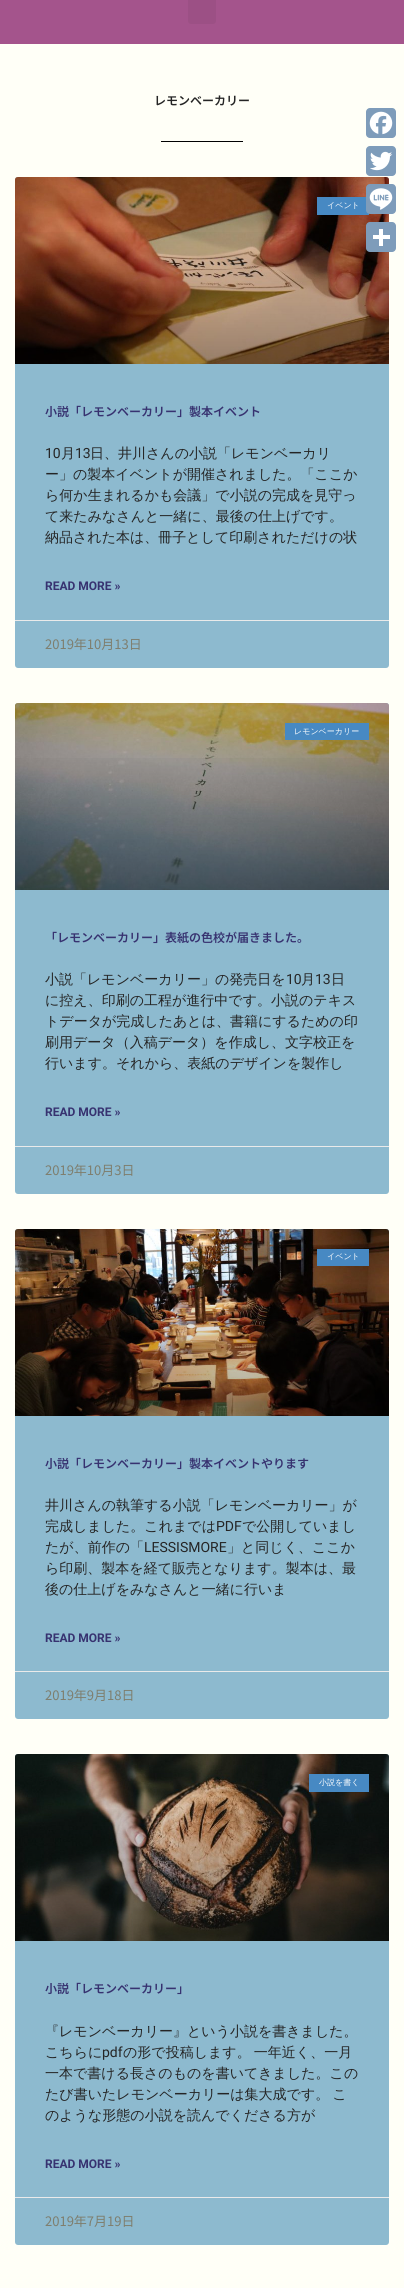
import math
import cairocffi as cairo

surface = cairo.ImageSurface(cairo.FORMAT_RGB24, 404, 2288)
cr = cairo.Context(surface)
options = cairo.FontOptions()
options.set_hint_metrics(cairo.HINT_METRICS_OFF)
options.set_hint_style(cairo.HINT_STYLE_NONE)
cr.set_font_options(options)
cr.set_miter_limit(4)


def use_color(code):
    cr.set_source_rgb(*(v / 255 for v in bytes.fromhex(code[-6:])))


def spaced_text(x, y, s, letter, word):
    cr.move_to(x, y)
    for ch in s:
        cr.show_text(ch)
        cr.rel_move_to(letter + word * (ch == ' '), 0)


def round_rect(x, y, w, h, r):
    cr.new_sub_path()
    for i, (u, v) in enumerate([(x + w - r, y + h - r), (x + r, y + h - r), (x + r, y + r), (x + w - r, y + r)]):
        cr.arc(u, v, r, i * math.pi / 2, (i + 1) * math.pi / 2)
    cr.close_path()


def picture(path, x, y, w, h):
    cr.save()
    cr.set_source_surface(cairo.ImageSurface.create_from_png(path), x, y)
    cr.rectangle(x, y, w, h)
    cr.fill()
    cr.restore()


use_color("#a4548c")
cr.paint()
use_color("#9c5085")
round_rect(188, -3, 28, 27, 3)
cr.fill()
use_color("#fffff7")
cr.rectangle(0, 44, 404, 2244)
cr.fill()
cr.select_font_face("Noto Sans JP SemiBold")
cr.set_font_size(12)
use_color("#252525")
cr.move_to(154, 105)
cr.show_text("レモンベーカリー")
use_color("#000000")
cr.rectangle(161, 141, 82, 1)
cr.fill()
use_color("#8dbacf")
round_rect(15, 177, 374, 491, 3)
cr.fill()
picture("img1.png", 15, 177, 374, 187)
gradient = cairo.LinearGradient(202, 364, 202, 177)
gradient.add_color_stop_rgba(0, 0, 0, 0, 0.35)
gradient.add_color_stop_rgba(0.75, 0, 0, 0, 0)
cr.set_source(gradient)
cr.rectangle(15, 232, 374, 132)
cr.fill()
use_color("#4789c3")
cr.rectangle(317, 197, 52, 18)
cr.fill()
cr.select_font_face("WenQuanYi Zen Hei Medium")
cr.set_font_size(8)
use_color("#ffffff")
cr.move_to(327, 208)
cr.show_text("イベント")
cr.select_font_face("Noto Sans JP SemiBold")
cr.set_font_size(12)
use_color("#373270")
cr.move_to(45, 416)
cr.show_text("小説「レモンベーカリー」製本イベント")
cr.select_font_face("Roboto")
cr.set_font_size(14)
use_color("#252525")
cr.move_to(45, 458)
cr.show_text("10")
cr.select_font_face("WenQuanYi Zen Hei Medium")
cr.move_to(61, 458)
cr.show_text("月")
cr.select_font_face("Roboto")
cr.move_to(75, 458)
cr.show_text("13")
cr.select_font_face("WenQuanYi Zen Hei Medium")
cr.move_to(90, 458)
cr.show_text("日、井川さんの小説「レモンベーカリ")
cr.move_to(45, 479)
cr.show_text("ー」の製本イベントが開催されました。「ここか")
cr.move_to(45, 500)
cr.show_text("ら何か生まれるかも会議」で小説の完成を見守っ")
cr.move_to(45, 521)
cr.show_text("て来たみなさんと一緒に、最後の仕上げです。")
cr.move_to(45, 542)
cr.show_text("納品された本は、冊子として印刷されただけの状")
cr.select_font_face("Roboto", cairo.FONT_SLANT_NORMAL, cairo.FONT_WEIGHT_BOLD)
cr.set_font_size(12)
use_color("#373270")
cr.move_to(45, 590)
cr.show_text("READ MORE »")
use_color("#eaeaea")
cr.rectangle(15, 620, 374, 1)
cr.fill()
cr.select_font_face("Noto Sans JP")
cr.set_font_size(13)
use_color("#7e7e6e")
cr.move_to(45, 649)
cr.show_text("2019年10月13日")
use_color("#8dbacf")
round_rect(15, 703, 374, 491, 3)
cr.fill()
picture("img2.png", 15, 703, 374, 187)
gradient = cairo.LinearGradient(202, 890, 202, 703)
gradient.add_color_stop_rgba(0, 0, 0, 0, 0.35)
gradient.add_color_stop_rgba(0.75, 0, 0, 0, 0)
cr.set_source(gradient)
cr.rectangle(15, 758, 374, 132)
cr.fill()
use_color("#4789c3")
cr.rectangle(285, 723, 84, 17)
cr.fill()
cr.select_font_face("WenQuanYi Zen Hei Medium")
cr.set_font_size(8)
use_color("#ffffff")
cr.move_to(294, 734)
cr.show_text("レモンベーカリー")
cr.select_font_face("Noto Sans JP SemiBold")
cr.set_font_size(12)
use_color("#373270")
cr.move_to(45, 942)
cr.show_text("「レモンベーカリー」表紙の色校が届きました。")
cr.select_font_face("WenQuanYi Zen Hei Medium")
cr.set_font_size(14)
use_color("#252525")
cr.move_to(45, 984)
cr.show_text("小説「レモンベーカリー」の発売日を")
cr.select_font_face("Roboto")
cr.move_to(286, 984)
cr.show_text("10")
cr.select_font_face("WenQuanYi Zen Hei Medium")
cr.move_to(301, 984)
cr.show_text("月")
cr.select_font_face("Roboto")
cr.move_to(315, 984)
cr.show_text("13")
cr.select_font_face("WenQuanYi Zen Hei Medium")
cr.move_to(331, 984)
cr.show_text("日")
cr.move_to(45, 1005)
cr.show_text("に控え、印刷の工程が進行中です。小説のテキス")
cr.move_to(45, 1026)
cr.show_text("トデータが完成したあとは、書籍にするための印")
cr.move_to(45, 1047)
cr.show_text("刷用データ（入稿データ）を作成し、文字校正を")
cr.move_to(45, 1068)
cr.show_text("行います。それから、表紙のデザインを製作し")
cr.select_font_face("Roboto", cairo.FONT_SLANT_NORMAL, cairo.FONT_WEIGHT_BOLD)
cr.set_font_size(12)
use_color("#373270")
cr.move_to(45, 1116)
cr.show_text("READ MORE »")
use_color("#eaeaea")
cr.rectangle(15, 1146, 374, 1)
cr.fill()
cr.select_font_face("Noto Sans JP")
cr.set_font_size(13)
use_color("#7e7e6e")
cr.move_to(45, 1175)
cr.show_text("2019年10月3日")
use_color("#8dbacf")
round_rect(15, 1229, 374, 490, 3)
cr.fill()
picture("img3.png", 15, 1229, 374, 187)
gradient = cairo.LinearGradient(202, 1416, 202, 1229)
gradient.add_color_stop_rgba(0, 0, 0, 0, 0.35)
gradient.add_color_stop_rgba(0.75, 0, 0, 0, 0)
cr.set_source(gradient)
cr.rectangle(15, 1284, 374, 132)
cr.fill()
use_color("#4789c3")
cr.rectangle(317, 1249, 52, 17)
cr.fill()
cr.select_font_face("WenQuanYi Zen Hei Medium")
cr.set_font_size(8)
use_color("#ffffff")
cr.move_to(327, 1259)
cr.show_text("イベント")
cr.select_font_face("Noto Sans JP SemiBold")
cr.set_font_size(12)
use_color("#373270")
cr.move_to(45, 1468)
cr.show_text("小説「レモンベーカリー」製本イベントやります")
cr.select_font_face("WenQuanYi Zen Hei Medium")
cr.set_font_size(14)
use_color("#252525")
cr.move_to(45, 1510)
cr.show_text("井川さんの執筆する小説「レモンベーカリー」が")
cr.move_to(45, 1531)
cr.show_text("完成しました。これまでは")
cr.select_font_face("Roboto")
cr.move_to(216, 1531)
cr.show_text("PDF")
cr.select_font_face("WenQuanYi Zen Hei Medium")
cr.move_to(242, 1531)
cr.show_text("で公開していまし")
cr.move_to(45, 1552)
cr.show_text("たが、前作の「")
cr.select_font_face("Roboto")
cr.move_to(144, 1552)
cr.show_text("LESSISMORE")
cr.select_font_face("WenQuanYi Zen Hei Medium")
cr.move_to(227, 1552)
cr.show_text("」と同じく、ここか")
cr.move_to(45, 1573)
cr.show_text("ら印刷、製本を経て販売となります。製本は、最")
cr.move_to(45, 1594)
cr.show_text("後の仕上げをみなさんと一緒に行いま")
cr.select_font_face("Roboto", cairo.FONT_SLANT_NORMAL, cairo.FONT_WEIGHT_BOLD)
cr.set_font_size(12)
use_color("#373270")
cr.move_to(45, 1642)
cr.show_text("READ MORE »")
use_color("#eaeaea")
cr.rectangle(15, 1671, 374, 1)
cr.fill()
cr.select_font_face("Noto Sans JP")
cr.set_font_size(13)
use_color("#7e7e6e")
cr.move_to(45, 1700)
cr.show_text("2019年9月18日")
use_color("#8dbacf")
round_rect(15, 1754, 374, 491, 3)
cr.fill()
picture("img4.png", 15, 1754, 374, 187)
gradient = cairo.LinearGradient(202, 1941, 202, 1754)
gradient.add_color_stop_rgba(0, 0, 0, 0, 0.35)
gradient.add_color_stop_rgba(0.75, 0, 0, 0, 0)
cr.set_source(gradient)
cr.rectangle(15, 1809, 374, 132)
cr.fill()
use_color("#4789c3")
cr.rectangle(309, 1774, 60, 18)
cr.fill()
cr.select_font_face("WenQuanYi Zen Hei Medium")
cr.set_font_size(8)
use_color("#ffffff")
cr.move_to(319, 1785)
cr.show_text("小説を書く")
cr.select_font_face("Noto Sans JP SemiBold")
cr.set_font_size(12)
use_color("#373270")
cr.move_to(45, 1993)
cr.show_text("小説「レモンベーカリー」")
cr.select_font_face("WenQuanYi Zen Hei Medium")
cr.set_font_size(14)
use_color("#252525")
cr.move_to(45, 2036)
cr.show_text("『レモンベーカリー』という小説を書きました。")
cr.move_to(45, 2057)
cr.show_text("こちらに")
cr.select_font_face("Roboto")
cr.move_to(102, 2057)
cr.show_text("pdf")
cr.select_font_face("WenQuanYi Zen Hei Medium")
spaced_text(123, 2057, "の形で投稿します。 一年近く、一月", 0, -1)
cr.move_to(45, 2078)
cr.show_text("一本で書ける長さのものを書いてきました。この")
spaced_text(45, 2099, "たび書いたレモンベーカリーは集大成です。 こ", 0, -1)
cr.move_to(45, 2120)
cr.show_text("のような形態の小説を読んでくださる方が")
cr.select_font_face("Roboto", cairo.FONT_SLANT_NORMAL, cairo.FONT_WEIGHT_BOLD)
cr.set_font_size(12)
use_color("#373270")
cr.move_to(45, 2168)
cr.show_text("READ MORE »")
use_color("#eaeaea")
cr.rectangle(15, 2197, 374, 1)
cr.fill()
cr.select_font_face("Noto Sans JP")
cr.set_font_size(13)
use_color("#7e7e6e")
cr.move_to(45, 2226)
cr.show_text("2019年7月19日")
use_color("#7e9cba")
round_rect(366, 108, 30, 30, 4)
cr.fill()
picture("img5.png", 369, 111, 24, 24)
round_rect(366, 146, 30, 30, 4)
cr.fill()
picture("img6.png", 370, 151, 23, 20)
round_rect(366, 184, 30, 30, 4)
cr.fill()
picture("img7.png", 369, 188, 24, 22)
round_rect(366, 222, 30, 30, 4)
cr.fill()
use_color("#ffffff")
cr.rectangle(379, 229, 4, 17)
cr.fill()
cr.rectangle(373, 235, 17, 4)
cr.fill()
surface.write_to_png("result.png")
